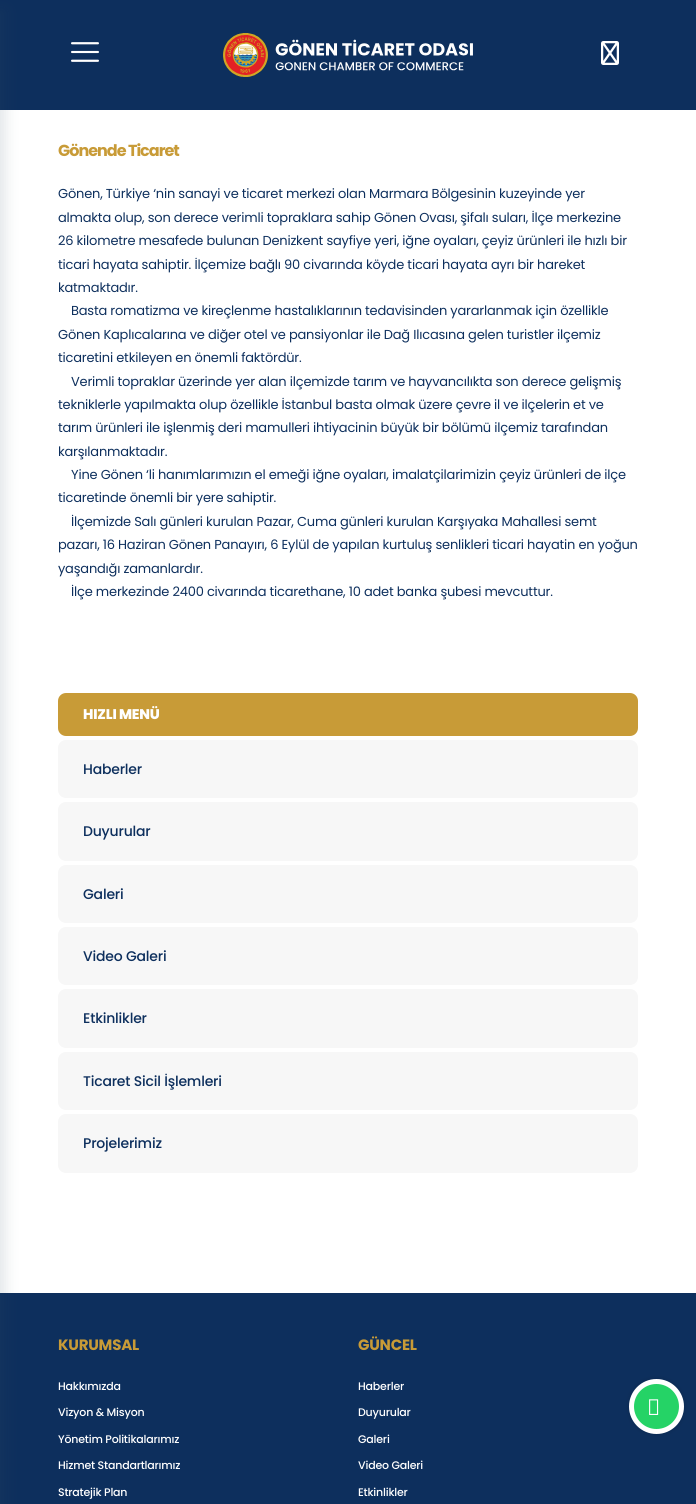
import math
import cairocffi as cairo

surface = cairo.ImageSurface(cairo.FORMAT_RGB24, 696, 1504)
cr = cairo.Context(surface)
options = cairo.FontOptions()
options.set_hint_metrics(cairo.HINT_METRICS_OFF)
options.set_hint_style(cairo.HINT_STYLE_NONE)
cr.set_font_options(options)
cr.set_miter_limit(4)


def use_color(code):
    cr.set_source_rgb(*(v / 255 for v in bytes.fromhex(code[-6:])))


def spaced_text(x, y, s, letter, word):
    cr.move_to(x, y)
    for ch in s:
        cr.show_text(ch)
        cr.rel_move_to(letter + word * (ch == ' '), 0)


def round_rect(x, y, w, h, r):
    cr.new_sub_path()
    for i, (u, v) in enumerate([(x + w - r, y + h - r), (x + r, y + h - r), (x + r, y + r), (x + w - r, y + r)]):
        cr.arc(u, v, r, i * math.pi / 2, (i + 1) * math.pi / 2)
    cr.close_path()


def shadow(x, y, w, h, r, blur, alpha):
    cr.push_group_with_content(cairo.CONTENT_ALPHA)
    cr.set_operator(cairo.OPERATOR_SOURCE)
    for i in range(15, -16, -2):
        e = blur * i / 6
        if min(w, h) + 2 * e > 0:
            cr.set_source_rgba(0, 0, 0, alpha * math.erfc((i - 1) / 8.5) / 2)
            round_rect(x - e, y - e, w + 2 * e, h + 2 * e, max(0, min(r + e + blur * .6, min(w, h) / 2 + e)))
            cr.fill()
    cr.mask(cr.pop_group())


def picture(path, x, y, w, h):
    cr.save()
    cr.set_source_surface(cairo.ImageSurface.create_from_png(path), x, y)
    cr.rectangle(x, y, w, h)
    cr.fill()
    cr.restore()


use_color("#ffffff")
cr.paint()
use_color("#0d2f5d")
cr.rectangle(0, 0, 696, 110)
cr.fill()
picture("img1.png", 223, 33, 250, 44)
picture("img2.png", 71, 42, 28, 20)
picture("img3.png", 601, 41, 18, 24)
cr.rectangle(0, 1293, 696, 211)
cr.fill()
use_color("#364f62")
shadow(-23, 10, 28, 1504, 0, 7.5, 0.15)
cr.select_font_face("Poppins", cairo.FONT_SLANT_NORMAL, cairo.FONT_WEIGHT_BOLD)
cr.set_font_size(16)
use_color("#c89b37")
spaced_text(58, 156, "Gönende Ticaret", -1, 0)
cr.select_font_face("Poppins")
cr.set_font_size(13)
use_color("#0d2f5d")
spaced_text(58, 198, "Gönen, Türkiye ‘nin sanayi ve ticaret merkezi olan Marmara Bölgesinin kuzeyinde yer", -0.2, 0)
spaced_text(58, 222, "almakta olup, son derece verimli topraklara sahip Gönen Ovası, şifalı suları, İlçe merkezine", -0.2, 0)
spaced_text(58, 245, "26 kilometre mesafede bulunan Denizkent sayfiye yeri, iğne oyaları, çeyiz ürünleri ile hızlı bir", -0.2, 0)
spaced_text(58, 269, "ticari hayata sahiptir. İlçemize bağlı 90 civarında köyde ticari hayata ayrı bir hareket", -0.2, 0)
spaced_text(58, 292, "katmaktadır.", -0.2, 0)
spaced_text(71, 315, "Basta romatizma ve kireçlenme hastalıklarının tedavisinden yararlanmak için özellikle", -0.2, 0)
spaced_text(58, 339, "Gönen Kaplıcalarına ve diğer otel ve pansiyonlar ile Dağ Ilıcasına gelen turistler ilçemiz", -0.2, 0)
spaced_text(58, 362, "ticaretini etkileyen en önemli faktördür.", -0.2, 0)
spaced_text(71, 386, "Verimli topraklar üzerinde yer alan ilçemizde tarım ve hayvancılıkta son derece gelişmiş", -0.2, 0)
spaced_text(58, 409, "tekniklerle yapılmakta olup özellikle İstanbul basta olmak üzere çevre il ve ilçelerin et ve", -0.2, 0)
spaced_text(58, 432, "tarım ürünleri ile işlenmiş deri mamulleri ihtiyacinin büyük bir bölümü ilçemiz tarafından", -0.2, 0)
spaced_text(58, 456, "karşılanmaktadır.", -0.2, 0)
spaced_text(71, 479, "Yine Gönen ‘li hanımlarımızın el emeği iğne oyaları, imalatçilarimizin çeyiz ürünleri de ilçe", -0.2, 0)
spaced_text(58, 502, "ticaretinde önemli bir yere sahiptir.", -0.2, 0)
spaced_text(71, 526, "İlçemizde Salı günleri kurulan Pazar, Cuma günleri kurulan Karşıyaka Mahallesi semt", -0.2, 0)
spaced_text(58, 549, "pazarı, 16 Haziran Gönen Panayırı, 6 Eylül de yapılan kurtuluş senlikleri ticari hayatin en yoğun", -0.2, 0)
spaced_text(58, 573, "yaşandığı zamanlardır.", -0.2, 0)
spaced_text(71, 596, "İlçe merkezinde 2400 civarında ticarethane, 10 adet banka şubesi mevcuttur.", -0.2, 0)
use_color("#c89b37")
round_rect(58, 693, 580, 43, 8)
cr.fill()
cr.select_font_face("Poppins ExtraBold")
cr.set_font_size(14)
use_color("#ffffff")
spaced_text(83, 719, "HIZLI MENÜ", -0.2, 0)
use_color("#f7f7f7")
round_rect(58, 740, 580, 58, 8)
cr.fill()
cr.select_font_face("Poppins Medium")
use_color("#0d2f5d")
spaced_text(83, 774, "Haberler", -0.2, 0)
use_color("#f7f7f7")
round_rect(58, 802, 580, 59, 8)
cr.fill()
use_color("#0d2f5d")
spaced_text(83, 836, "Duyurular", -0.2, 0)
use_color("#f7f7f7")
round_rect(58, 865, 580, 58, 8)
cr.fill()
use_color("#0d2f5d")
spaced_text(83, 899, "Galeri", -0.2, 0)
use_color("#f7f7f7")
round_rect(58, 927, 580, 58, 8)
cr.fill()
use_color("#0d2f5d")
spaced_text(83, 961, "Video Galeri", -0.2, 0)
use_color("#f7f7f7")
round_rect(58, 989, 580, 59, 8)
cr.fill()
use_color("#0d2f5d")
spaced_text(83, 1023, "Etkinlikler", -0.2, 0)
use_color("#f7f7f7")
round_rect(58, 1052, 580, 58, 8)
cr.fill()
use_color("#0d2f5d")
spaced_text(83, 1086, "Ticaret Sicil İşlemleri", -0.2, 0)
use_color("#f7f7f7")
round_rect(58, 1114, 580, 59, 8)
cr.fill()
use_color("#0d2f5d")
spaced_text(83, 1148, "Projelerimiz", -0.2, 0)
cr.select_font_face("Poppins", cairo.FONT_SLANT_NORMAL, cairo.FONT_WEIGHT_BOLD)
cr.set_font_size(15)
use_color("#c89b37")
spaced_text(58, 1350, "KURUMSAL", -0.2, 0)
cr.select_font_face("Poppins Medium")
cr.set_font_size(11)
use_color("#ffffff")
spaced_text(58, 1390, "Hakkımızda", -0.2, 0)
spaced_text(58, 1416, "Vizyon & Misyon", -0.2, 0)
spaced_text(58, 1443, "Yönetim Politikalarımız", -0.2, 0)
spaced_text(58, 1469, "Hizmet Standartlarımız", -0.2, 0)
spaced_text(58, 1496, "Stratejik Plan", -0.2, 0)
cr.select_font_face("Poppins", cairo.FONT_SLANT_NORMAL, cairo.FONT_WEIGHT_BOLD)
cr.set_font_size(15)
use_color("#c89b37")
spaced_text(358, 1350, "GÜNCEL", -0.2, 0)
cr.select_font_face("Poppins Medium")
cr.set_font_size(11)
use_color("#ffffff")
spaced_text(358, 1390, "Haberler", -0.2, 0)
spaced_text(358, 1416, "Duyurular", -0.2, 0)
spaced_text(358, 1443, "Galeri", -0.2, 0)
spaced_text(358, 1469, "Video Galeri", -0.2, 0)
spaced_text(358, 1496, "Etkinlikler", -0.2, 0)
use_color("#000000")
shadow(629, 1379, 55, 55, 27.5, 2.5, 0.15)
use_color("#25d366")
cr.arc(656.5, 1406.5, 25, 0, 2 * math.pi)
cr.fill_preserve()
use_color("#ffffff")
cr.set_line_width(5)
cr.stroke()
picture("img4.png", 649, 1399, 10, 16)
surface.write_to_png("result.png")
